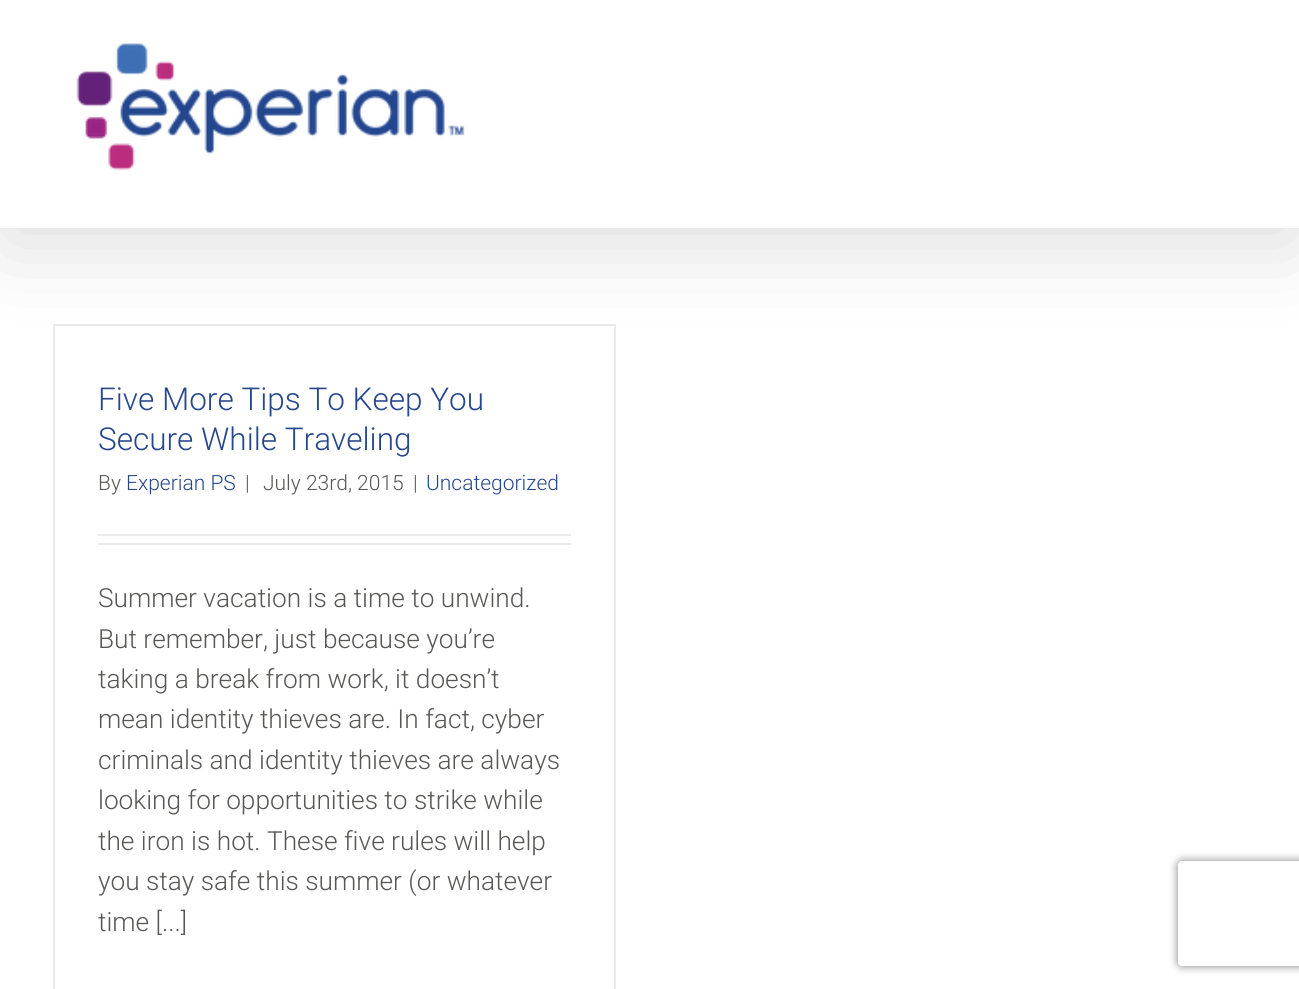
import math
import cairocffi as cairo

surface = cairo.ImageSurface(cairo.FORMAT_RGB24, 1299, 989)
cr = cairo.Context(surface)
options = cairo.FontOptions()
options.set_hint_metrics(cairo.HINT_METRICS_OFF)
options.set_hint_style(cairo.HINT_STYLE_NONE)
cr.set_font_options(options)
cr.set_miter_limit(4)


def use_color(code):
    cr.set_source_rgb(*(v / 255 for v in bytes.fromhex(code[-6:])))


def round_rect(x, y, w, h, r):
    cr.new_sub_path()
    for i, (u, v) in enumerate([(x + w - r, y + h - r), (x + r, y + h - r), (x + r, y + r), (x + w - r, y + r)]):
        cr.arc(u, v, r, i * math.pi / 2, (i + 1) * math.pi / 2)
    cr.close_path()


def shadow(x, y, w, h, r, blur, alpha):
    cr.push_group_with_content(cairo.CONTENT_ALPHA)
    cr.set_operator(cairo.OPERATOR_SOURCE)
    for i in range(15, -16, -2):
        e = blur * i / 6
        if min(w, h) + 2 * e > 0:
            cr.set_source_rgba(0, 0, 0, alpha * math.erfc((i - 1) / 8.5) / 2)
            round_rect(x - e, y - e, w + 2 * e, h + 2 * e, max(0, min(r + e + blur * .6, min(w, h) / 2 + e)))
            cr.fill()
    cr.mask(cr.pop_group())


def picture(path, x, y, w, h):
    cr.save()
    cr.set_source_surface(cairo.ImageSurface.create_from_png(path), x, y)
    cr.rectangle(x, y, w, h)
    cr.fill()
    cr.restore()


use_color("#ffffff")
cr.paint()
use_color("#ebeaea")
cr.rectangle(53, 324, 563, 2)
cr.fill()
cr.rectangle(614, 324, 2, 665)
cr.fill()
cr.rectangle(53, 324, 2, 665)
cr.fill()
use_color("#000000")
shadow(4, 21, 1293, 221, 0, 44, 0.14)
use_color("#ffffff")
cr.rectangle(0, 0, 1299, 228)
cr.fill()
picture("img1.png", 76, 43, 389, 128)
cr.select_font_face("Roboto Light")
cr.set_font_size(31.5)
use_color("#26478d")
cr.move_to(98, 410)
cr.show_text("Five More Tips To Keep You")
cr.move_to(98, 450)
cr.show_text("Secure While Traveling")
cr.set_font_size(21)
use_color("#575755")
cr.move_to(98, 490)
cr.show_text("By")
use_color("#26478d")
cr.move_to(126, 490)
cr.show_text("Experian PS")
use_color("#575755")
cr.move_to(245, 490)
cr.show_text("|")
cr.move_to(263, 490)
cr.show_text("July 23rd, 2015")
cr.move_to(413, 490)
cr.show_text("|")
use_color("#26478d")
cr.move_to(426, 490)
cr.show_text("Uncategorized")
use_color("#ebeaea")
cr.rectangle(98, 534, 473, 2)
cr.fill()
cr.rectangle(98, 543, 473, 2)
cr.fill()
cr.set_font_size(26.25)
use_color("#575755")
cr.move_to(98, 607)
cr.show_text("Summer vacation is a time to unwind.")
cr.move_to(98, 648)
cr.show_text("But remember, just because you’re")
cr.move_to(98, 688)
cr.show_text("taking a break from work, it doesn’t")
cr.move_to(98, 728)
cr.show_text("mean identity thieves are. In fact, cyber")
cr.move_to(98, 769)
cr.show_text("criminals and identity thieves are always")
cr.move_to(98, 809)
cr.show_text("looking for opportunities to strike while")
cr.move_to(98, 850)
cr.show_text("the iron is hot. These five rules will help")
cr.move_to(98, 890)
cr.show_text("you stay safe this summer (or whatever")
cr.move_to(98, 931)
cr.show_text("time [...]")
cr.save()
cr.set_fill_rule(cairo.FILL_RULE_EVEN_ODD)
cr.new_path()
cr.move_to(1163, 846)
cr.line_to(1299, 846)
cr.line_to(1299, 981)
cr.line_to(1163, 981)
cr.close_path()
cr.move_to(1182, 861)
cr.line_to(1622, 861)
cr.curve_to(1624, 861, 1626, 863, 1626, 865)
cr.line_to(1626, 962)
cr.curve_to(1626, 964, 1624, 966, 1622, 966)
cr.line_to(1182, 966)
cr.curve_to(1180, 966, 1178, 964, 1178, 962)
cr.line_to(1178, 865)
cr.curve_to(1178, 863, 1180, 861, 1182, 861)
cr.close_path()
cr.clip()
use_color("#808080")
shadow(1178, 861, 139, 105, 4, 4.5, 1)
cr.restore()
surface.write_to_png("result.png")
